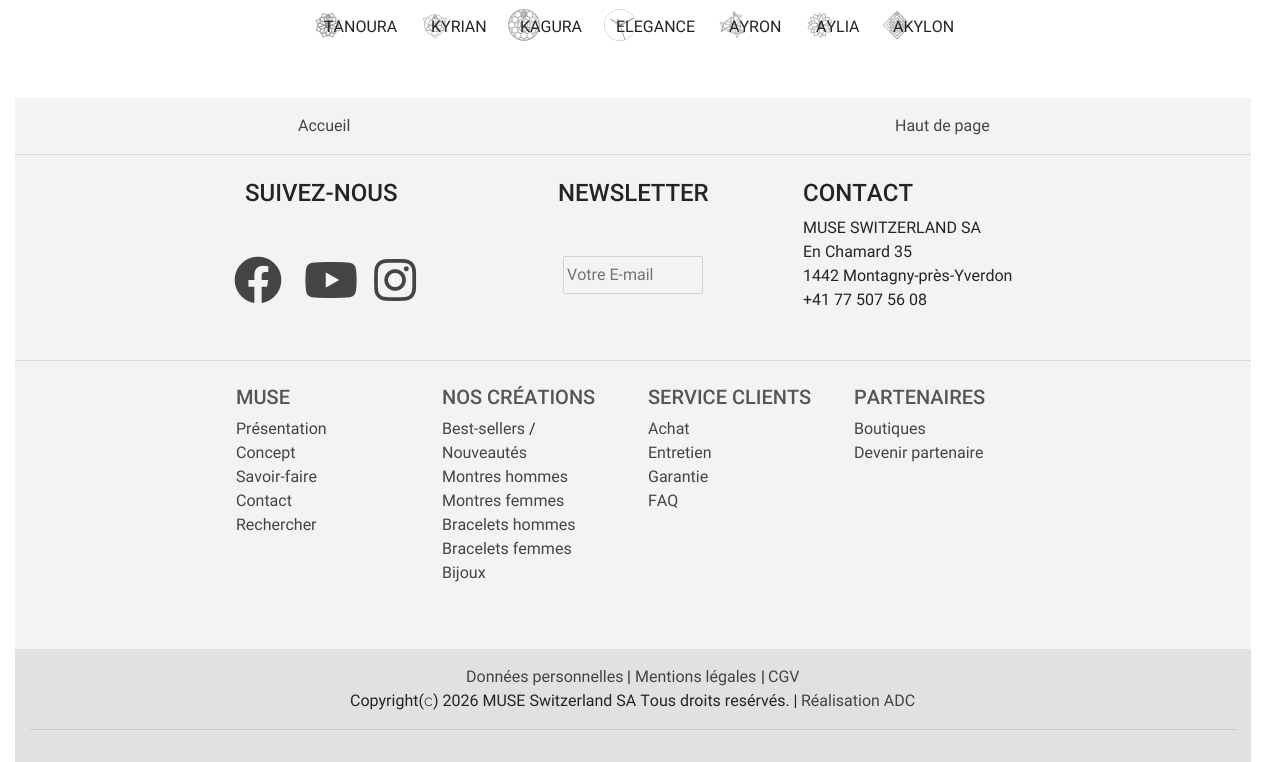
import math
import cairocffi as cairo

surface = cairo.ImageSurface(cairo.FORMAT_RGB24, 1266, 762)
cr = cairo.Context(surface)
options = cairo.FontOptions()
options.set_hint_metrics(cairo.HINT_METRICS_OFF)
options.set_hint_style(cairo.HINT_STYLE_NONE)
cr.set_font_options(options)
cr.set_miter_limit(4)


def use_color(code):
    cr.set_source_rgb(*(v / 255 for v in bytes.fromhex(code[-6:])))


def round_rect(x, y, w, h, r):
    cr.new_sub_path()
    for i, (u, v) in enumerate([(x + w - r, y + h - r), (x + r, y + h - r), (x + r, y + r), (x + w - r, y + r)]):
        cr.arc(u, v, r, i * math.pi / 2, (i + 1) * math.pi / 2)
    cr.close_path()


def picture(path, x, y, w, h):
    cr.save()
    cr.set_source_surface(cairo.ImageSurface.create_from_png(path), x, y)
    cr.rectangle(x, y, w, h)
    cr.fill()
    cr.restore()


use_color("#ffffff")
cr.paint()
picture("img1.png", 315, 13, 26, 25)
cr.select_font_face("Roboto")
cr.set_font_size(16)
use_color("#212529")
cr.move_to(324, 32)
cr.show_text("TANOURA")
picture("img2.png", 423, 14, 24, 25)
cr.move_to(431, 32)
cr.show_text("KYRIAN")
picture("img3.png", 508, 9, 32, 32)
cr.move_to(520, 32)
cr.show_text("KAGURA")
picture("img4.png", 604, 9, 32, 32)
cr.move_to(616, 32)
cr.show_text("ELEGANCE")
picture("img5.png", 719, 11, 26, 28)
cr.move_to(729, 32)
cr.show_text("AYRON")
picture("img6.png", 807, 12, 26, 26)
cr.move_to(816, 32)
cr.show_text("AYLIA")
picture("img7.png", 882, 10, 30, 30)
cr.move_to(893, 32)
cr.show_text("AKYLON")
use_color("#f3f3f3")
cr.rectangle(15, 98, 1236, 56)
cr.fill()
use_color("#444444")
cr.move_to(298, 131)
cr.show_text("Accueil")
cr.move_to(895, 131)
cr.show_text("Haut de page")
use_color("#f3f3f3")
cr.rectangle(15, 155, 1236, 205)
cr.fill()
use_color("#dddddd")
cr.rectangle(15, 154, 1236, 1)
cr.fill()
cr.select_font_face("Roboto Medium")
cr.set_font_size(24)
use_color("#212529")
cr.move_to(245, 201)
cr.show_text("SUIVEZ-NOUS")
picture("img8.png", 234, 256, 48, 47)
picture("img9.png", 305, 262, 52, 36)
picture("img10.png", 374, 259, 43, 42)
cr.move_to(558, 201)
cr.show_text("NEWSLETTER")
round_rect(563.5, 256.5, 139, 37, 1.5)
use_color("#ced4da")
cr.set_line_width(1)
cr.stroke()
cr.select_font_face("Roboto")
cr.set_font_size(16)
use_color("#6c757d")
cr.move_to(567, 280)
cr.show_text("Votre E-mail")
cr.select_font_face("Roboto Medium")
cr.set_font_size(24)
use_color("#212529")
cr.move_to(803, 201)
cr.show_text("CONTACT")
cr.select_font_face("Roboto")
cr.set_font_size(16)
cr.move_to(803, 233)
cr.show_text("MUSE SWITZERLAND SA")
cr.move_to(803, 257)
cr.show_text("En Chamard 35")
cr.move_to(803, 281)
cr.show_text("1442 Montagny-près-Yverdon")
cr.move_to(803, 305)
cr.show_text("+41 77 507 56 08")
use_color("#f3f3f3")
cr.rectangle(15, 361, 1236, 288)
cr.fill()
use_color("#dddddd")
cr.rectangle(15, 360, 1236, 1)
cr.fill()
cr.select_font_face("Roboto Medium")
cr.set_font_size(20)
use_color("#555555")
cr.move_to(236, 404)
cr.show_text("MUSE")
cr.select_font_face("Roboto")
cr.set_font_size(16)
use_color("#444444")
cr.move_to(236, 434)
cr.show_text("Présentation")
cr.move_to(236, 458)
cr.show_text("Concept")
cr.move_to(236, 482)
cr.show_text("Savoir-faire")
cr.move_to(236, 506)
cr.show_text("Contact")
cr.move_to(236, 530)
cr.show_text("Rechercher")
cr.select_font_face("Roboto Medium")
cr.set_font_size(20)
use_color("#555555")
cr.move_to(442, 404)
cr.show_text("NOS CRÉATIONS")
cr.select_font_face("Roboto")
cr.set_font_size(16)
use_color("#444444")
cr.move_to(442, 434)
cr.show_text("Best-sellers")
use_color("#212529")
cr.move_to(529, 434)
cr.show_text("/")
use_color("#444444")
cr.move_to(442, 458)
cr.show_text("Nouveautés")
cr.move_to(442, 482)
cr.show_text("Montres hommes")
cr.move_to(442, 506)
cr.show_text("Montres femmes")
cr.move_to(442, 530)
cr.show_text("Bracelets hommes")
cr.move_to(442, 554)
cr.show_text("Bracelets femmes")
cr.move_to(442, 578)
cr.show_text("Bijoux")
cr.select_font_face("Roboto Medium")
cr.set_font_size(20)
use_color("#555555")
cr.move_to(648, 404)
cr.show_text("SERVICE CLIENTS")
cr.select_font_face("Roboto")
cr.set_font_size(16)
use_color("#444444")
cr.move_to(648, 434)
cr.show_text("Achat")
cr.move_to(648, 458)
cr.show_text("Entretien")
cr.move_to(648, 482)
cr.show_text("Garantie")
cr.move_to(648, 506)
cr.show_text("FAQ")
cr.select_font_face("Roboto Medium")
cr.set_font_size(20)
use_color("#555555")
cr.move_to(854, 404)
cr.show_text("PARTENAIRES")
cr.select_font_face("Roboto")
cr.set_font_size(16)
use_color("#444444")
cr.move_to(854, 434)
cr.show_text("Boutiques")
cr.move_to(854, 458)
cr.show_text("Devenir partenaire")
use_color("#e1e1e1")
cr.rectangle(15, 649, 1236, 113)
cr.fill()
use_color("#444444")
cr.move_to(466, 682)
cr.show_text("Données personnelles")
use_color("#212529")
cr.move_to(627, 682)
cr.show_text("|")
use_color("#444444")
cr.move_to(635, 682)
cr.show_text("Mentions légales")
use_color("#212529")
cr.move_to(761, 682)
cr.show_text("|")
use_color("#444444")
cr.move_to(768, 682)
cr.show_text("CGV")
use_color("#212529")
cr.move_to(350, 706)
cr.show_text("Copyright(")
cr.select_font_face("Raleway Light")
cr.move_to(424, 706)
cr.show_text("c")
cr.select_font_face("Roboto")
cr.move_to(433, 706)
cr.show_text(") 2026 MUSE Switzerland SA Tous droits resérvés. |")
use_color("#444444")
cr.move_to(801, 706)
cr.show_text("Réalisation ADC")
use_color("#cbcbcb")
cr.rectangle(30, 729, 1206, 1)
cr.fill()
surface.write_to_png("result.png")
